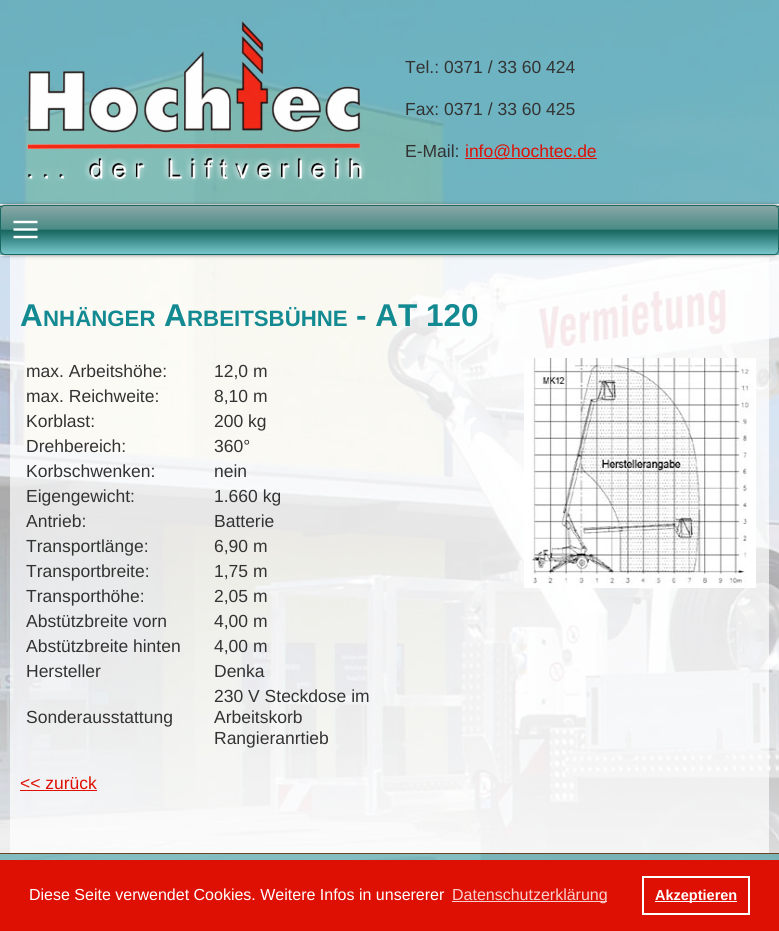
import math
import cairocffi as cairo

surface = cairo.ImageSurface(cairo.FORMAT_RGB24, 779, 931)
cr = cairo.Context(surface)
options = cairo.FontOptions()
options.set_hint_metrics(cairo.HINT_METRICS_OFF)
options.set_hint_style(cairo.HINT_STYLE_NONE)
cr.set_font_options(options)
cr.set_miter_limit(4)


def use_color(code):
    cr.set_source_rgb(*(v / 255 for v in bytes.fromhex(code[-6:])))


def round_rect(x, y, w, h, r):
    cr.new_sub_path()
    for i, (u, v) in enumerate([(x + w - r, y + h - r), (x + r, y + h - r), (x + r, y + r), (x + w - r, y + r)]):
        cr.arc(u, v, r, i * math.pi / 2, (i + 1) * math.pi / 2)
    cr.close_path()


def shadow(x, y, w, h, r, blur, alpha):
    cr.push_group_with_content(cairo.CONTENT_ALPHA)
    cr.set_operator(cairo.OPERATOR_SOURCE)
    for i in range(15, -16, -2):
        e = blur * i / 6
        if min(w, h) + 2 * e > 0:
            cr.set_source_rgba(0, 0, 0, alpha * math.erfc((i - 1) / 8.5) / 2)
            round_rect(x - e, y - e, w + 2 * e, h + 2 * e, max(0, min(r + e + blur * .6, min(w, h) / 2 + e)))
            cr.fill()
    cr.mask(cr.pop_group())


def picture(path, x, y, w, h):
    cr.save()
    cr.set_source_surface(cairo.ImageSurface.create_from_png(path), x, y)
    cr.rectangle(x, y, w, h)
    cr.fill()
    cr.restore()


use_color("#ffffff")
cr.paint()
picture("img1.png", 0, 0, 779, 860)
cr.set_source_rgba(0.075, 0.541, 0.573, 0.5)
cr.rectangle(0, 0, 779, 204)
cr.fill()
use_color("#ffffff")
cr.rectangle(0, 204, 779, 1)
cr.fill()
picture("img2.png", 24, 21, 342, 160)
cr.select_font_face("Liberation Sans")
cr.set_font_size(17.5)
use_color("#333333")
cr.move_to(405, 73)
cr.show_text("Tel.: 0371 / 33 60 424")
cr.move_to(405, 115)
cr.show_text("Fax: 0371 / 33 60 425")
cr.move_to(405, 157)
cr.show_text("E-Mail:")
use_color("#de1003")
cr.rectangle(465, 158, 132, 1)
cr.fill()
cr.move_to(465, 157)
cr.show_text("info@hochtec.de")
picture("img3.png", 0, 205, 779, 50)
use_color("#ffffff")
cr.rectangle(0, 255, 779, 1)
cr.fill()
cr.set_source_rgba(1, 1, 1, 0.7)
cr.rectangle(10, 256, 759, 597)
cr.fill()
use_color("#333333")
shadow(1, 206, 777, 48, 4, 2.5, 1)
cr.save()
round_rect(0, 205, 779, 50, 5)
cr.clip()
gradient = cairo.LinearGradient(390, 206, 390, 254)
gradient.add_color_stop_rgba(0, 0.533, 0.655, 0.651, 1)
gradient.add_color_stop_rgba(0.48, 0.29, 0.545, 0.525, 1)
gradient.add_color_stop_rgba(0.51, 0.094, 0.404, 0.376, 1)
gradient.add_color_stop_rgba(1, 0.471, 0.776, 0.796, 1)
cr.set_source(gradient)
cr.rectangle(0, 206, 779, 48)
cr.fill()
cr.restore()
round_rect(0.5, 205.5, 778, 49, 4.5)
use_color("#196861")
cr.set_line_width(1)
cr.stroke()
cr.new_path()
cr.move_to(13.5, 237)
cr.line_to(37.5, 237)
cr.move_to(13.5, 222)
cr.line_to(37.5, 222)
cr.move_to(13.5, 229.5)
cr.line_to(37.5, 229.5)
use_color("#ffffff")
cr.set_line_width(2.4)
cr.stroke()
cr.select_font_face("Liberation Sans", cairo.FONT_SLANT_NORMAL, cairo.FONT_WEIGHT_BOLD)
cr.set_font_size(31.5)
use_color("#138a92")
cr.move_to(20, 326)
cr.show_text("A")
cr.set_font_size(22.25)
cr.move_to(43, 326)
cr.show_text("NHÄNGER")
cr.set_font_size(31.5)
cr.move_to(164, 326)
cr.show_text("A")
cr.set_font_size(22.25)
cr.move_to(187, 326)
cr.show_text("RBEITSBÜHNE")
cr.set_font_size(31.5)
cr.move_to(356, 326)
cr.show_text("- AT 120")
cr.select_font_face("Liberation Sans")
cr.set_font_size(17.5)
use_color("#333333")
cr.move_to(26, 377)
cr.show_text("max. Arbeitshöhe:")
cr.move_to(214, 377)
cr.show_text("12,0 m")
cr.move_to(26, 402)
cr.show_text("max. Reichweite:")
cr.move_to(214, 402)
cr.show_text("8,10 m")
cr.move_to(26, 427)
cr.show_text("Korblast:")
cr.move_to(214, 427)
cr.show_text("200 kg")
cr.move_to(26, 452)
cr.show_text("Drehbereich:")
cr.move_to(214, 452)
cr.show_text("360°")
cr.move_to(26, 477)
cr.show_text("Korbschwenken:")
cr.move_to(214, 477)
cr.show_text("nein")
cr.move_to(26, 502)
cr.show_text("Eigengewicht:")
cr.move_to(214, 502)
cr.show_text("1.660 kg")
cr.move_to(26, 527)
cr.show_text("Antrieb:")
cr.move_to(214, 527)
cr.show_text("Batterie")
cr.move_to(26, 552)
cr.show_text("Transportlänge:")
cr.move_to(214, 552)
cr.show_text("6,90 m")
cr.move_to(26, 577)
cr.show_text("Transportbreite:")
cr.move_to(214, 577)
cr.show_text("1,75 m")
cr.move_to(26, 602)
cr.show_text("Transporthöhe:")
cr.move_to(214, 602)
cr.show_text("2,05 m")
cr.move_to(26, 627)
cr.show_text("Abstützbreite vorn")
cr.move_to(214, 627)
cr.show_text("4,00 m")
cr.move_to(26, 652)
cr.show_text("Abstützbreite hinten")
cr.move_to(214, 652)
cr.show_text("4,00 m")
cr.move_to(26, 677)
cr.show_text("Hersteller")
cr.move_to(214, 677)
cr.show_text("Denka")
cr.move_to(26, 723)
cr.show_text("Sonderausstattung")
cr.move_to(214, 702)
cr.show_text("230 V Steckdose im")
cr.move_to(214, 723)
cr.show_text("Arbeitskorb")
cr.move_to(214, 744)
cr.show_text("Rangieranrtieb")
picture("img4.png", 524, 358, 232, 230)
use_color("#de1003")
cr.move_to(20, 789)
cr.show_text("<< zurück")
cr.rectangle(20, 790, 77, 1)
cr.fill()
cr.set_source_rgba(0.075, 0.541, 0.573, 0.5)
cr.rectangle(0, 854, 779, 6)
cr.fill()
use_color("#6a4121")
cr.rectangle(0, 853, 779, 1)
cr.fill()
use_color("#de1003")
cr.rectangle(0, 860, 779, 71)
cr.fill()
cr.set_font_size(16)
use_color("#ffffff")
cr.move_to(29, 900)
cr.show_text("Diese Seite verwendet Cookies. Weitere Infos in unsererer")
use_color("#f8cfcd")
cr.rectangle(452, 901, 155, 1)
cr.fill()
cr.move_to(452, 900)
cr.show_text("Datenschutzerklärung")
cr.rectangle(643, 877, 106, 37)
use_color("#ffffff")
cr.set_line_width(2)
cr.stroke()
cr.rectangle(655, 901, 82, 1)
cr.fill()
cr.select_font_face("Liberation Sans", cairo.FONT_SLANT_NORMAL, cairo.FONT_WEIGHT_BOLD)
cr.set_font_size(14.5)
cr.move_to(655, 900)
cr.show_text("Akzeptieren")
surface.write_to_png("result.png")
